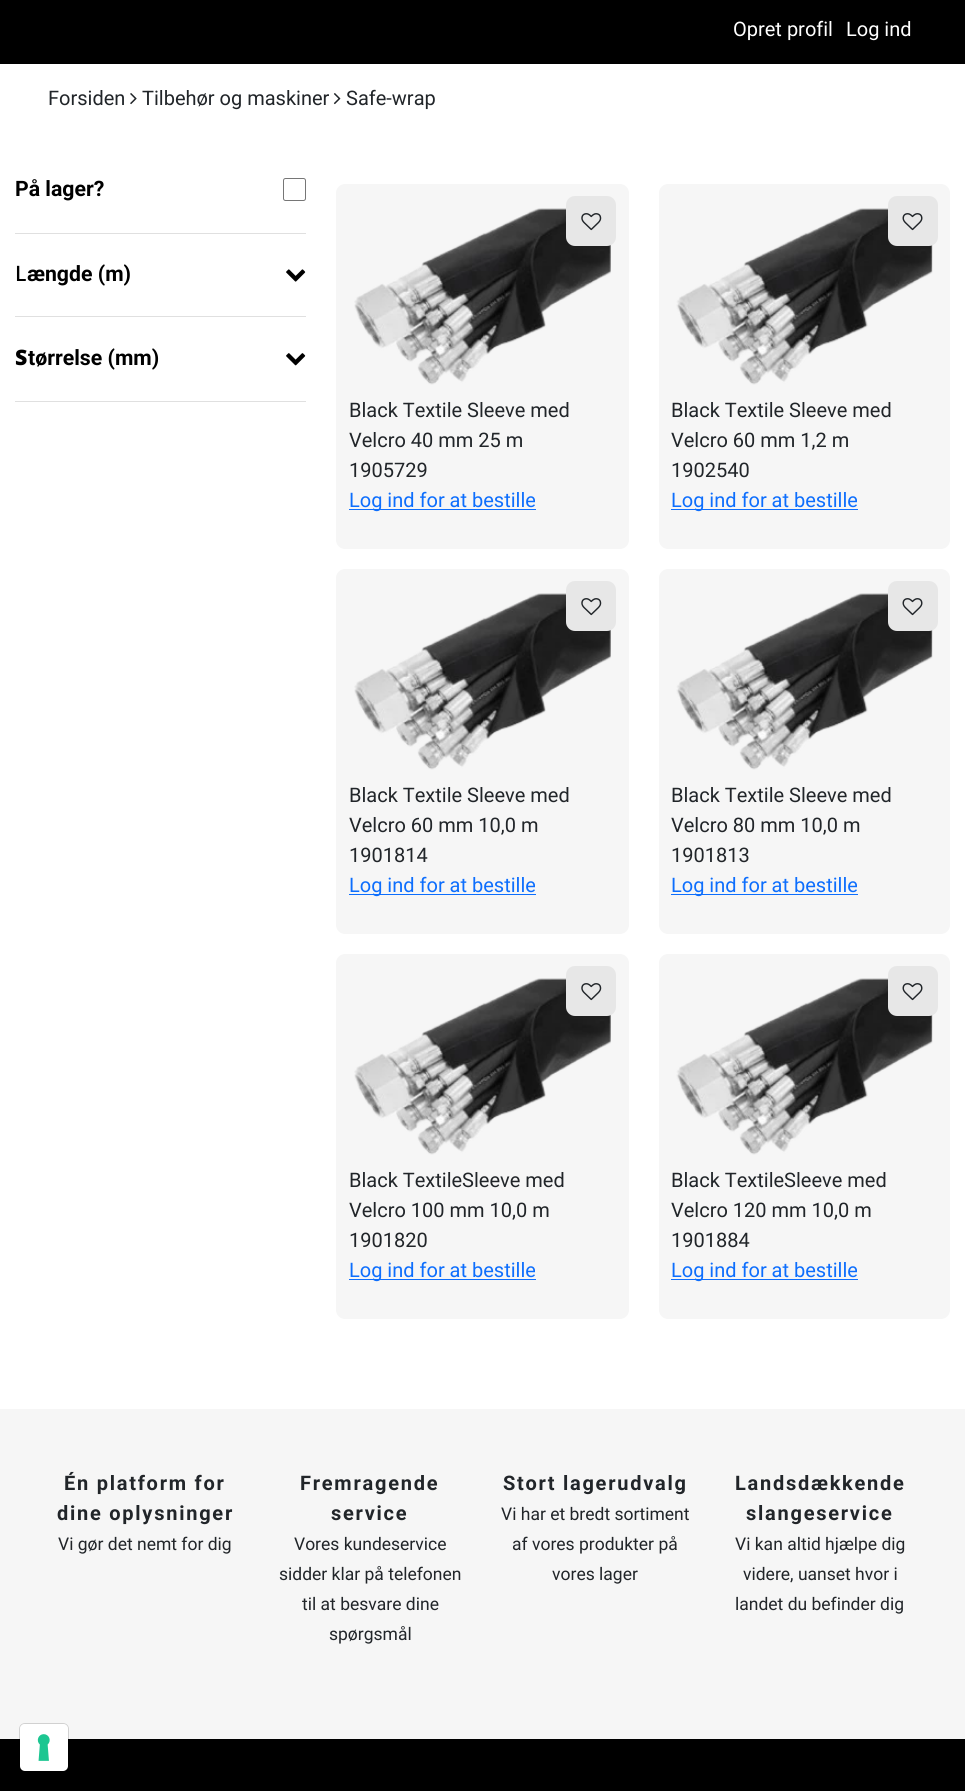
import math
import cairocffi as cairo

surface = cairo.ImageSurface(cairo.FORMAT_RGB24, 965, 1791)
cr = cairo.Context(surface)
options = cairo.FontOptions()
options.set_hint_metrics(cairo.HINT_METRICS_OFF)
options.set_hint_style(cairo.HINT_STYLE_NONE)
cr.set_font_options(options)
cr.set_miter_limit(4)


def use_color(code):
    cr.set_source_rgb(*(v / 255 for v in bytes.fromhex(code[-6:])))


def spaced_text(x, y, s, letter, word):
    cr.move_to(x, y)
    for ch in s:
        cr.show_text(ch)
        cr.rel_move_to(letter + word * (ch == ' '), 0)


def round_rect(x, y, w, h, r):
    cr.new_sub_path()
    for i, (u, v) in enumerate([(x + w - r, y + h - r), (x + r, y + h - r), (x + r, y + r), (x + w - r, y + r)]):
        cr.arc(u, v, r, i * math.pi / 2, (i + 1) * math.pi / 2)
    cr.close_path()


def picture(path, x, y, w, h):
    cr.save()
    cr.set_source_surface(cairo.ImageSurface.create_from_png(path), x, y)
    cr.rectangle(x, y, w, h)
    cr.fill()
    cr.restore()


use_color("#ffffff")
cr.paint()
use_color("#000000")
cr.rectangle(0, 0, 965, 64)
cr.fill()
cr.select_font_face("Roboto")
cr.set_font_size(20)
use_color("#ffffff")
cr.move_to(733, 36)
cr.show_text("Opret profil")
cr.move_to(846, 36)
cr.show_text("Log ind")
use_color("#212529")
cr.move_to(48, 105)
cr.show_text("Forsiden")
picture("img1.png", 130, 93, 7, 12)
cr.move_to(142, 105)
cr.show_text("Tilbehør og maskiner")
picture("img2.png", 333, 93, 8, 12)
cr.move_to(346, 105)
cr.show_text("Safe-wrap")
use_color("#e0e0e0")
cr.rectangle(15, 233, 291, 1)
cr.fill()
cr.select_font_face("Roboto", cairo.FONT_SLANT_NORMAL, cairo.FONT_WEIGHT_BOLD)
cr.set_font_size(21.25)
use_color("#000000")
cr.move_to(15, 196)
cr.show_text("På lager?")
round_rect(283.5, 178.5, 22, 22, 2)
use_color("#767676")
cr.set_line_width(1)
cr.stroke()
use_color("#e0e0e0")
cr.rectangle(15, 316, 291, 1)
cr.fill()
cr.select_font_face("Noto Sans Medium")
use_color("#000000")
cr.move_to(15, 281)
cr.show_text("L")
cr.select_font_face("Roboto", cairo.FONT_SLANT_NORMAL, cairo.FONT_WEIGHT_BOLD)
cr.move_to(27, 281)
cr.show_text("ængde (m)")
picture("img3.png", 286, 269, 20, 13)
use_color("#e0e0e0")
cr.rectangle(15, 401, 291, 1)
cr.fill()
cr.select_font_face("Noto Sans Black")
use_color("#000000")
cr.move_to(15, 365)
cr.show_text("S")
cr.select_font_face("Roboto", cairo.FONT_SLANT_NORMAL, cairo.FONT_WEIGHT_BOLD)
cr.move_to(28, 365)
cr.show_text("tørrelse (mm)")
picture("img4.png", 286, 353, 20, 13)
use_color("#f6f6f6")
round_rect(336, 184, 293, 365, 9)
cr.fill()
picture("img6.png", 354, 208, 257, 177)
use_color("#e7e7e7")
round_rect(566, 196, 50, 50, 9)
cr.fill()
picture("img5.png", 581, 213, 21, 18)
cr.select_font_face("Roboto")
cr.set_font_size(20)
use_color("#212529")
cr.move_to(349, 417)
cr.show_text("Black Textile Sleeve med")
cr.move_to(349, 447)
cr.show_text("Velcro 40 mm 25 m")
cr.move_to(349, 477)
cr.show_text("1905729")
use_color("#0d6efd")
cr.rectangle(349, 509, 187, 1)
cr.fill()
cr.move_to(349, 507)
cr.show_text("Log ind for at bestille")
use_color("#f6f6f6")
round_rect(659, 184, 291, 365, 9)
cr.fill()
picture("img8.png", 676, 208, 257, 177)
use_color("#e7e7e7")
round_rect(888, 196, 50, 50, 9)
cr.fill()
picture("img7.png", 902, 213, 21, 18)
use_color("#212529")
cr.move_to(671, 417)
cr.show_text("Black Textile Sleeve med")
cr.move_to(671, 447)
cr.show_text("Velcro 60 mm 1,2 m")
cr.move_to(671, 477)
cr.show_text("1902540")
use_color("#0d6efd")
cr.rectangle(671, 509, 187, 1)
cr.fill()
cr.move_to(671, 507)
cr.show_text("Log ind for at bestille")
use_color("#f6f6f6")
round_rect(336, 569, 293, 365, 9)
cr.fill()
picture("img6.png", 354, 593, 257, 177)
use_color("#e7e7e7")
round_rect(566, 581, 50, 50, 9)
cr.fill()
picture("img5.png", 581, 598, 21, 18)
use_color("#212529")
cr.move_to(349, 802)
cr.show_text("Black Textile Sleeve med")
cr.move_to(349, 832)
cr.show_text("Velcro 60 mm 10,0 m")
cr.move_to(349, 862)
cr.show_text("1901814")
use_color("#0d6efd")
cr.rectangle(349, 894, 187, 1)
cr.fill()
cr.move_to(349, 892)
cr.show_text("Log ind for at bestille")
use_color("#f6f6f6")
round_rect(659, 569, 291, 365, 9)
cr.fill()
picture("img8.png", 676, 593, 257, 177)
use_color("#e7e7e7")
round_rect(888, 581, 50, 50, 9)
cr.fill()
picture("img7.png", 902, 598, 21, 18)
use_color("#212529")
cr.move_to(671, 802)
cr.show_text("Black Textile Sleeve med")
cr.move_to(671, 832)
cr.show_text("Velcro 80 mm 10,0 m")
cr.move_to(671, 862)
cr.show_text("1901813")
use_color("#0d6efd")
cr.rectangle(671, 894, 187, 1)
cr.fill()
cr.move_to(671, 892)
cr.show_text("Log ind for at bestille")
use_color("#f6f6f6")
round_rect(336, 954, 293, 365, 9)
cr.fill()
picture("img6.png", 354, 978, 257, 177)
use_color("#e7e7e7")
round_rect(566, 966, 50, 50, 9)
cr.fill()
picture("img5.png", 581, 983, 21, 18)
use_color("#212529")
cr.move_to(349, 1187)
cr.show_text("Black TextileSleeve med")
cr.move_to(349, 1217)
cr.show_text("Velcro 100 mm 10,0 m")
cr.move_to(349, 1247)
cr.show_text("1901820")
use_color("#0d6efd")
cr.rectangle(349, 1279, 187, 1)
cr.fill()
cr.move_to(349, 1277)
cr.show_text("Log ind for at bestille")
use_color("#f6f6f6")
round_rect(659, 954, 291, 365, 9)
cr.fill()
picture("img8.png", 676, 978, 257, 177)
use_color("#e7e7e7")
round_rect(888, 966, 50, 50, 9)
cr.fill()
picture("img7.png", 902, 983, 21, 18)
use_color("#212529")
cr.move_to(671, 1187)
cr.show_text("Black TextileSleeve med")
cr.move_to(671, 1217)
cr.show_text("Velcro 120 mm 10,0 m")
cr.move_to(671, 1247)
cr.show_text("1901884")
use_color("#0d6efd")
cr.rectangle(671, 1279, 187, 1)
cr.fill()
cr.move_to(671, 1277)
cr.show_text("Log ind for at bestille")
use_color("#f6f6f6")
cr.rectangle(0, 1409, 965, 330)
cr.fill()
cr.select_font_face("Roboto", cairo.FONT_SLANT_NORMAL, cairo.FONT_WEIGHT_BOLD)
use_color("#212529")
spaced_text(64, 1490, "Én platform for", 1.75, 0)
spaced_text(57, 1520, "dine oplysninger", 1.75, 0)
cr.select_font_face("Roboto")
cr.set_font_size(17.5)
cr.move_to(58, 1550)
cr.show_text("Vi gør det nemt for dig")
cr.select_font_face("Roboto", cairo.FONT_SLANT_NORMAL, cairo.FONT_WEIGHT_BOLD)
cr.set_font_size(20)
spaced_text(300, 1490, "Fremragende", 1.75, 0)
spaced_text(331, 1520, "service", 1.75, 0)
cr.select_font_face("Roboto")
cr.set_font_size(17.5)
cr.move_to(294, 1550)
cr.show_text("Vores kundeservice")
cr.move_to(279, 1580)
cr.show_text("sidder klar på telefonen")
cr.move_to(302, 1610)
cr.show_text("til at besvare dine")
cr.move_to(329, 1640)
cr.show_text("spørgsmål")
cr.select_font_face("Roboto", cairo.FONT_SLANT_NORMAL, cairo.FONT_WEIGHT_BOLD)
cr.set_font_size(20)
spaced_text(503, 1490, "Stort lagerudvalg", 1.75, 0)
cr.select_font_face("Roboto")
cr.set_font_size(17.5)
cr.move_to(501, 1520)
cr.show_text("Vi har et bredt sortiment")
cr.move_to(512, 1550)
cr.show_text("af vores produkter på")
cr.move_to(552, 1580)
cr.show_text("vores lager")
cr.select_font_face("Roboto", cairo.FONT_SLANT_NORMAL, cairo.FONT_WEIGHT_BOLD)
cr.set_font_size(20)
spaced_text(735, 1490, "Landsdækkende", 1.75, 0)
spaced_text(746, 1520, "slangeservice", 1.75, 0)
cr.select_font_face("Roboto")
cr.set_font_size(17.5)
cr.move_to(735, 1550)
cr.show_text("Vi kan altid hjælpe dig")
cr.move_to(743, 1580)
cr.show_text("videre, uanset hvor i")
cr.move_to(735, 1610)
cr.show_text("landet du befinder dig")
use_color("#000000")
cr.rectangle(0, 1739, 965, 52)
cr.fill()
round_rect(19.5, 1723.5, 49, 49, 5.5)
cr.set_source_rgba(0, 0, 0, 0.15)
cr.stroke()
use_color("#ffffff")
round_rect(20, 1724, 48, 47, 5)
cr.fill()
picture("img9.png", 37, 1734, 13, 27)
surface.write_to_png("result.png")
